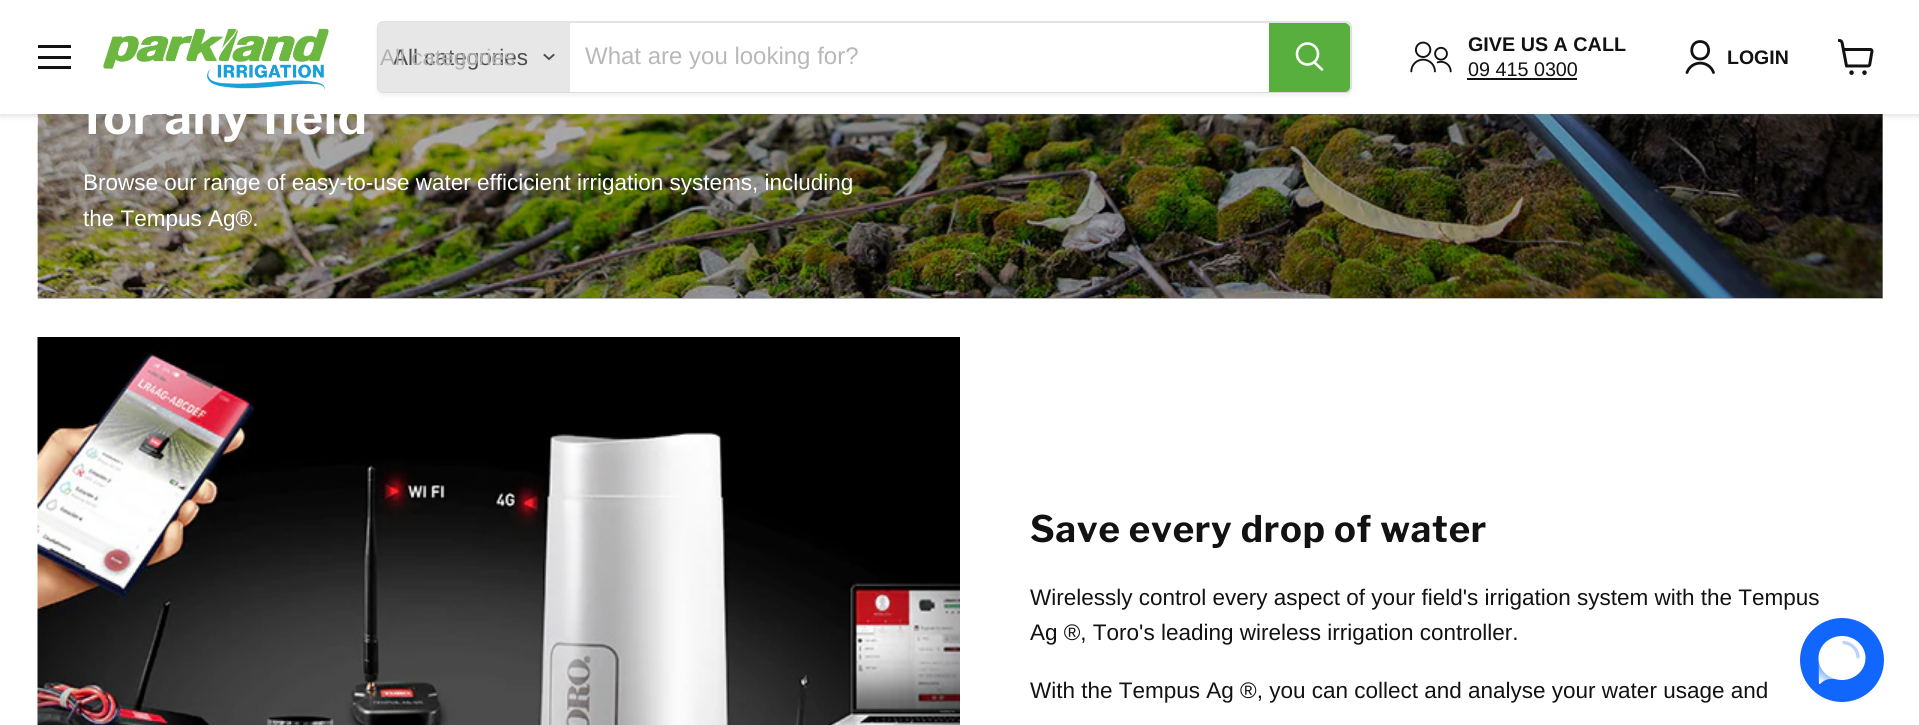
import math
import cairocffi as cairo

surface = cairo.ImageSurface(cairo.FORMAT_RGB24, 1919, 725)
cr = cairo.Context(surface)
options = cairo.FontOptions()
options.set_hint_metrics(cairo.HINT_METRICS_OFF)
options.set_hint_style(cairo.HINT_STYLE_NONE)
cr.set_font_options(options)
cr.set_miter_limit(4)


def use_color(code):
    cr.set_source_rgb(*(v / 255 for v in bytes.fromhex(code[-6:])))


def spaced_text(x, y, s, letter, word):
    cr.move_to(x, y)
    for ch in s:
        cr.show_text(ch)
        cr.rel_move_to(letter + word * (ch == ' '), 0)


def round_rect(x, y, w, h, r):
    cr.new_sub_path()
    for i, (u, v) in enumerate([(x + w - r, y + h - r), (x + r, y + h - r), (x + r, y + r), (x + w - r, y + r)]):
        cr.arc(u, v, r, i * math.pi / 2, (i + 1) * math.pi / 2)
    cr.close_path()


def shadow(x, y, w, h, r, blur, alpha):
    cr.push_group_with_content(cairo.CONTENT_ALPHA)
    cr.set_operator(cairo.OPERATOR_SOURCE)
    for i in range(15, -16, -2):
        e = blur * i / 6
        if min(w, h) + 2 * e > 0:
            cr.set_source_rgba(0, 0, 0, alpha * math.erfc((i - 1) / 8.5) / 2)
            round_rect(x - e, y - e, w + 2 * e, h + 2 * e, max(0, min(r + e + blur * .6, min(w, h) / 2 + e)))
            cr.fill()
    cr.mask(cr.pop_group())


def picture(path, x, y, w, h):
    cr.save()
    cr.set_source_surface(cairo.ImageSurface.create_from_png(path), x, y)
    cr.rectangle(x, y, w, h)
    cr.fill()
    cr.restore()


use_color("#ffffff")
cr.paint()
use_color("#b8b8b8")
cr.rectangle(38, 114, 1845, 185)
cr.fill()
picture("img4.png", 37, 114, 1846, 184)
use_color("#808080")
shadow(0, 2, 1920, 114, 0, 3, 0.25)
use_color("#ffffff")
cr.rectangle(0, 0, 1919, 114)
cr.fill()
use_color("#121212")
cr.rectangle(38, 45, 33, 3)
cr.fill()
cr.rectangle(38, 56, 33, 3)
cr.fill()
cr.rectangle(38, 66, 33, 3)
cr.fill()
picture("img1.png", 103, 28, 226, 62)
use_color("#808080")
shadow(377, 24, 975, 72, 6, 2, 0.11)
round_rect(378, 22, 973, 70, 5)
cr.set_source_rgba(0.502, 0.502, 0.502, 0.2)
cr.stroke()
use_color("#e7e7e7")
cr.new_path()
cr.move_to(383, 23)
cr.line_to(570, 23)
cr.line_to(570, 92)
cr.line_to(383, 92)
cr.curve_to(380, 92, 378, 90, 378, 87)
cr.line_to(378, 28)
cr.curve_to(378, 25, 380, 23, 383, 23)
cr.close_path()
cr.fill()
cr.select_font_face("Liberation Sans")
cr.set_font_size(22.5)
use_color("#4d4d4d")
cr.move_to(393, 65)
cr.show_text("All categories")
use_color("#b2b2b2")
cr.move_to(380, 65)
cr.show_text("All categories")
cr.new_path()
cr.move_to(549, 59)
cr.line_to(553.5, 55)
cr.move_to(549, 59)
cr.line_to(544.5, 55)
use_color("#4d4d4d")
cr.set_line_width(1.9)
cr.set_line_cap(cairo.LINE_CAP_SQUARE)
cr.stroke()
use_color("#ffffff")
cr.rectangle(570, 23, 699, 69)
cr.fill()
cr.set_font_size(24)
use_color("#b8b8b8")
cr.move_to(585, 64)
cr.show_text("What are you looking for?")
use_color("#58af3d")
cr.new_path()
cr.move_to(1270, 24)
cr.line_to(1345, 24)
cr.curve_to(1347, 24, 1349, 26, 1349, 28)
cr.line_to(1349, 87)
cr.curve_to(1349, 89, 1347, 91, 1345, 91)
cr.line_to(1270, 91)
cr.close_path()
cr.fill_preserve()
cr.set_line_width(2)
cr.set_line_cap(cairo.LINE_CAP_BUTT)
cr.stroke()
cr.new_path()
cr.move_to(1322, 69.5)
cr.line_to(1314.5, 62.5)
use_color("#ffffff")
cr.set_line_width(2.6)
cr.set_line_cap(cairo.LINE_CAP_ROUND)
cr.stroke()
cr.arc(1307.5, 54, 10.5, 0, 2 * math.pi)
cr.set_line_cap(cairo.LINE_CAP_BUTT)
cr.stroke()
picture("img2.png", 1410, 41, 42, 32)
cr.select_font_face("Liberation Sans", cairo.FONT_SLANT_NORMAL, cairo.FONT_WEIGHT_BOLD)
cr.set_font_size(19.75)
use_color("#121212")
cr.move_to(1468, 51)
cr.show_text("GIVE US A CALL")
cr.select_font_face("Liberation Sans")
cr.move_to(1468, 76)
cr.show_text("09 415 0300")
cr.rectangle(1467, 78, 110, 2)
cr.fill()
cr.new_path()
cr.move_to(1700, 59)
cr.curve_to(1711.5, 59, 1711.5, 41.5, 1700, 41.5)
cr.curve_to(1689, 41.5, 1689, 59, 1700, 59)
cr.close_path()
cr.move_to(1713.5, 72.5)
cr.curve_to(1709, 60, 1691.5, 60, 1687, 72.5)
cr.set_line_width(2.8)
cr.set_line_cap(cairo.LINE_CAP_ROUND)
cr.set_line_join(cairo.LINE_JOIN_ROUND)
cr.stroke()
cr.select_font_face("Liberation Sans", cairo.FONT_SLANT_NORMAL, cairo.FONT_WEIGHT_BOLD)
cr.set_font_size(19.5)
cr.move_to(1727, 64)
cr.show_text("LOGIN")
picture("img3.png", 1838, 39, 36, 36)
cr.select_font_face("Libre Franklin", cairo.FONT_SLANT_NORMAL, cairo.FONT_WEIGHT_BOLD)
cr.set_font_size(47.75)
use_color("#ffffff")
spaced_text(83, 134, "for any field", 1, 0)
cr.select_font_face("Liberation Sans")
cr.set_font_size(22.5)
cr.move_to(83, 190)
cr.show_text("Browse our range of easy-to-use water efficicient irrigation systems, including")
cr.move_to(83, 226)
cr.show_text("the Tempus Ag®.")
picture("img5.png", 37, 337, 923, 388)
cr.select_font_face("Libre Franklin", cairo.FONT_SLANT_NORMAL, cairo.FONT_WEIGHT_BOLD)
cr.set_font_size(36.5)
use_color("#121212")
spaced_text(1030, 542, "Save every drop of water", 0.75, 0)
cr.select_font_face("Liberation Sans")
cr.set_font_size(22.5)
cr.move_to(1030, 605)
cr.show_text("Wirelessly control every aspect of your field's irrigation system with the Tempus")
cr.move_to(1030, 640)
cr.show_text("Ag ®, Toro's leading wireless irrigation controller.")
cr.move_to(1030, 698)
cr.show_text("With the Tempus Ag ®, you can collect and analyse your water usage and")
use_color("#1166fd")
cr.new_path()
cr.arc(1842, 660, 42, 0, 2 * math.pi)
cr.fill()
picture("img6.png", 1818, 636, 48, 48)
surface.write_to_png("result.png")
